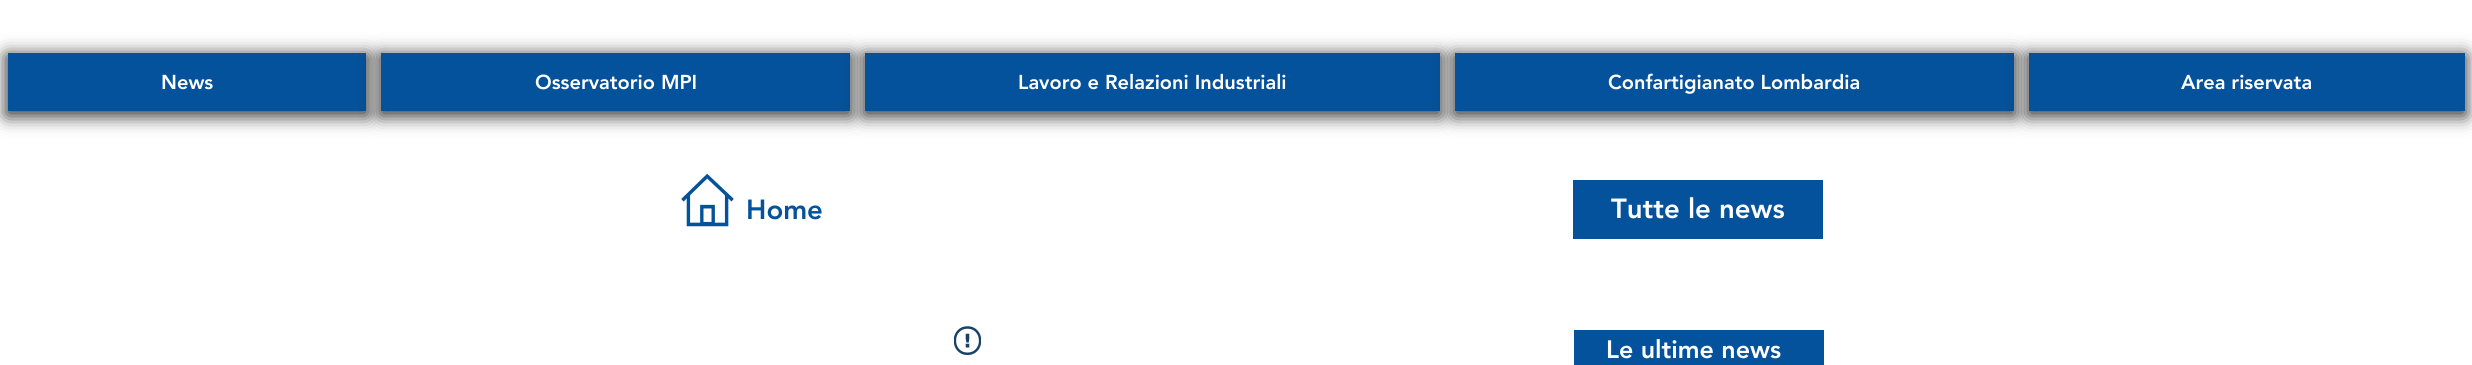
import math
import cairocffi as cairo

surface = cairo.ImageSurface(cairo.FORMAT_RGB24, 2472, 365)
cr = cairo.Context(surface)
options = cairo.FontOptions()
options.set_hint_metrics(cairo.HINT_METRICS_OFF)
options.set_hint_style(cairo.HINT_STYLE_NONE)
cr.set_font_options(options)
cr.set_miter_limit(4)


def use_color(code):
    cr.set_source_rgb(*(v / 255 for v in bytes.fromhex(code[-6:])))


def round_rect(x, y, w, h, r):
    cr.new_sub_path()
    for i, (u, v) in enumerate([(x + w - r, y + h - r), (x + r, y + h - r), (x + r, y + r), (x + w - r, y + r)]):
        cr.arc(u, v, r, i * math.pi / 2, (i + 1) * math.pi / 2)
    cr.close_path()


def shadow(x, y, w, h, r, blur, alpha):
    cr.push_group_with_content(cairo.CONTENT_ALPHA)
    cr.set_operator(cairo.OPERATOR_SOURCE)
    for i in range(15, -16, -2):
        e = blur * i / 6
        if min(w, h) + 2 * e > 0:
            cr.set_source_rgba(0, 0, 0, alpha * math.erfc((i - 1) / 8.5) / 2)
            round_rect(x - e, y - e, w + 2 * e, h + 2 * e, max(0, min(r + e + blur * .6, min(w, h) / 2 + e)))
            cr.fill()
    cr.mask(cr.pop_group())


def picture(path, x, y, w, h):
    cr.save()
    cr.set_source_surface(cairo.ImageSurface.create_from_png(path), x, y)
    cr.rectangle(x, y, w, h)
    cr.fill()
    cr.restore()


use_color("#ffffff")
cr.paint()
use_color("#000000")
shadow(6, 55, 362, 61, 0, 9, 0.82)
use_color("#04529b")
cr.rectangle(8, 53, 358, 58)
cr.fill()
cr.select_font_face("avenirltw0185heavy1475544 Black")
cr.set_font_size(20)
use_color("#ffffff")
cr.move_to(161, 89)
cr.show_text("News")
use_color("#000000")
shadow(380, 55, 471, 61, 0, 9, 0.82)
use_color("#04529b")
cr.rectangle(381, 53, 469, 58)
cr.fill()
use_color("#ffffff")
cr.move_to(535, 89)
cr.show_text("Osservatorio MPI")
use_color("#000000")
shadow(864, 55, 577, 61, 0, 9, 0.82)
use_color("#04529b")
cr.rectangle(865, 53, 575, 58)
cr.fill()
use_color("#ffffff")
cr.move_to(1018, 89)
cr.show_text("Lavoro e Relazioni Industriali")
use_color("#000000")
shadow(1454, 55, 561, 61, 0, 9, 0.82)
use_color("#04529b")
cr.rectangle(1455, 53, 559, 58)
cr.fill()
use_color("#ffffff")
cr.move_to(1608, 89)
cr.show_text("Confartigianato Lombardia")
use_color("#000000")
shadow(2028, 55, 438, 61, 0, 9, 0.82)
use_color("#04529b")
cr.rectangle(2029, 53, 436, 58)
cr.fill()
use_color("#ffffff")
cr.move_to(2181, 89)
cr.show_text("Area riservata")
picture("img1.png", 681, 173, 53, 54)
cr.set_font_size(27.5)
use_color("#04529b")
cr.move_to(746, 219)
cr.show_text("Home")
cr.rectangle(1573, 180, 250, 59)
cr.fill()
use_color("#ffffff")
cr.move_to(1611, 218)
cr.show_text("Tutte le news")
picture("img2.png", 954, 326, 27, 29)
use_color("#04529b")
cr.rectangle(1574, 330, 250, 35)
cr.fill()
cr.set_font_size(25)
use_color("#ffffff")
cr.move_to(1606, 358)
cr.show_text("Le ultime news")
surface.write_to_png("result.png")
